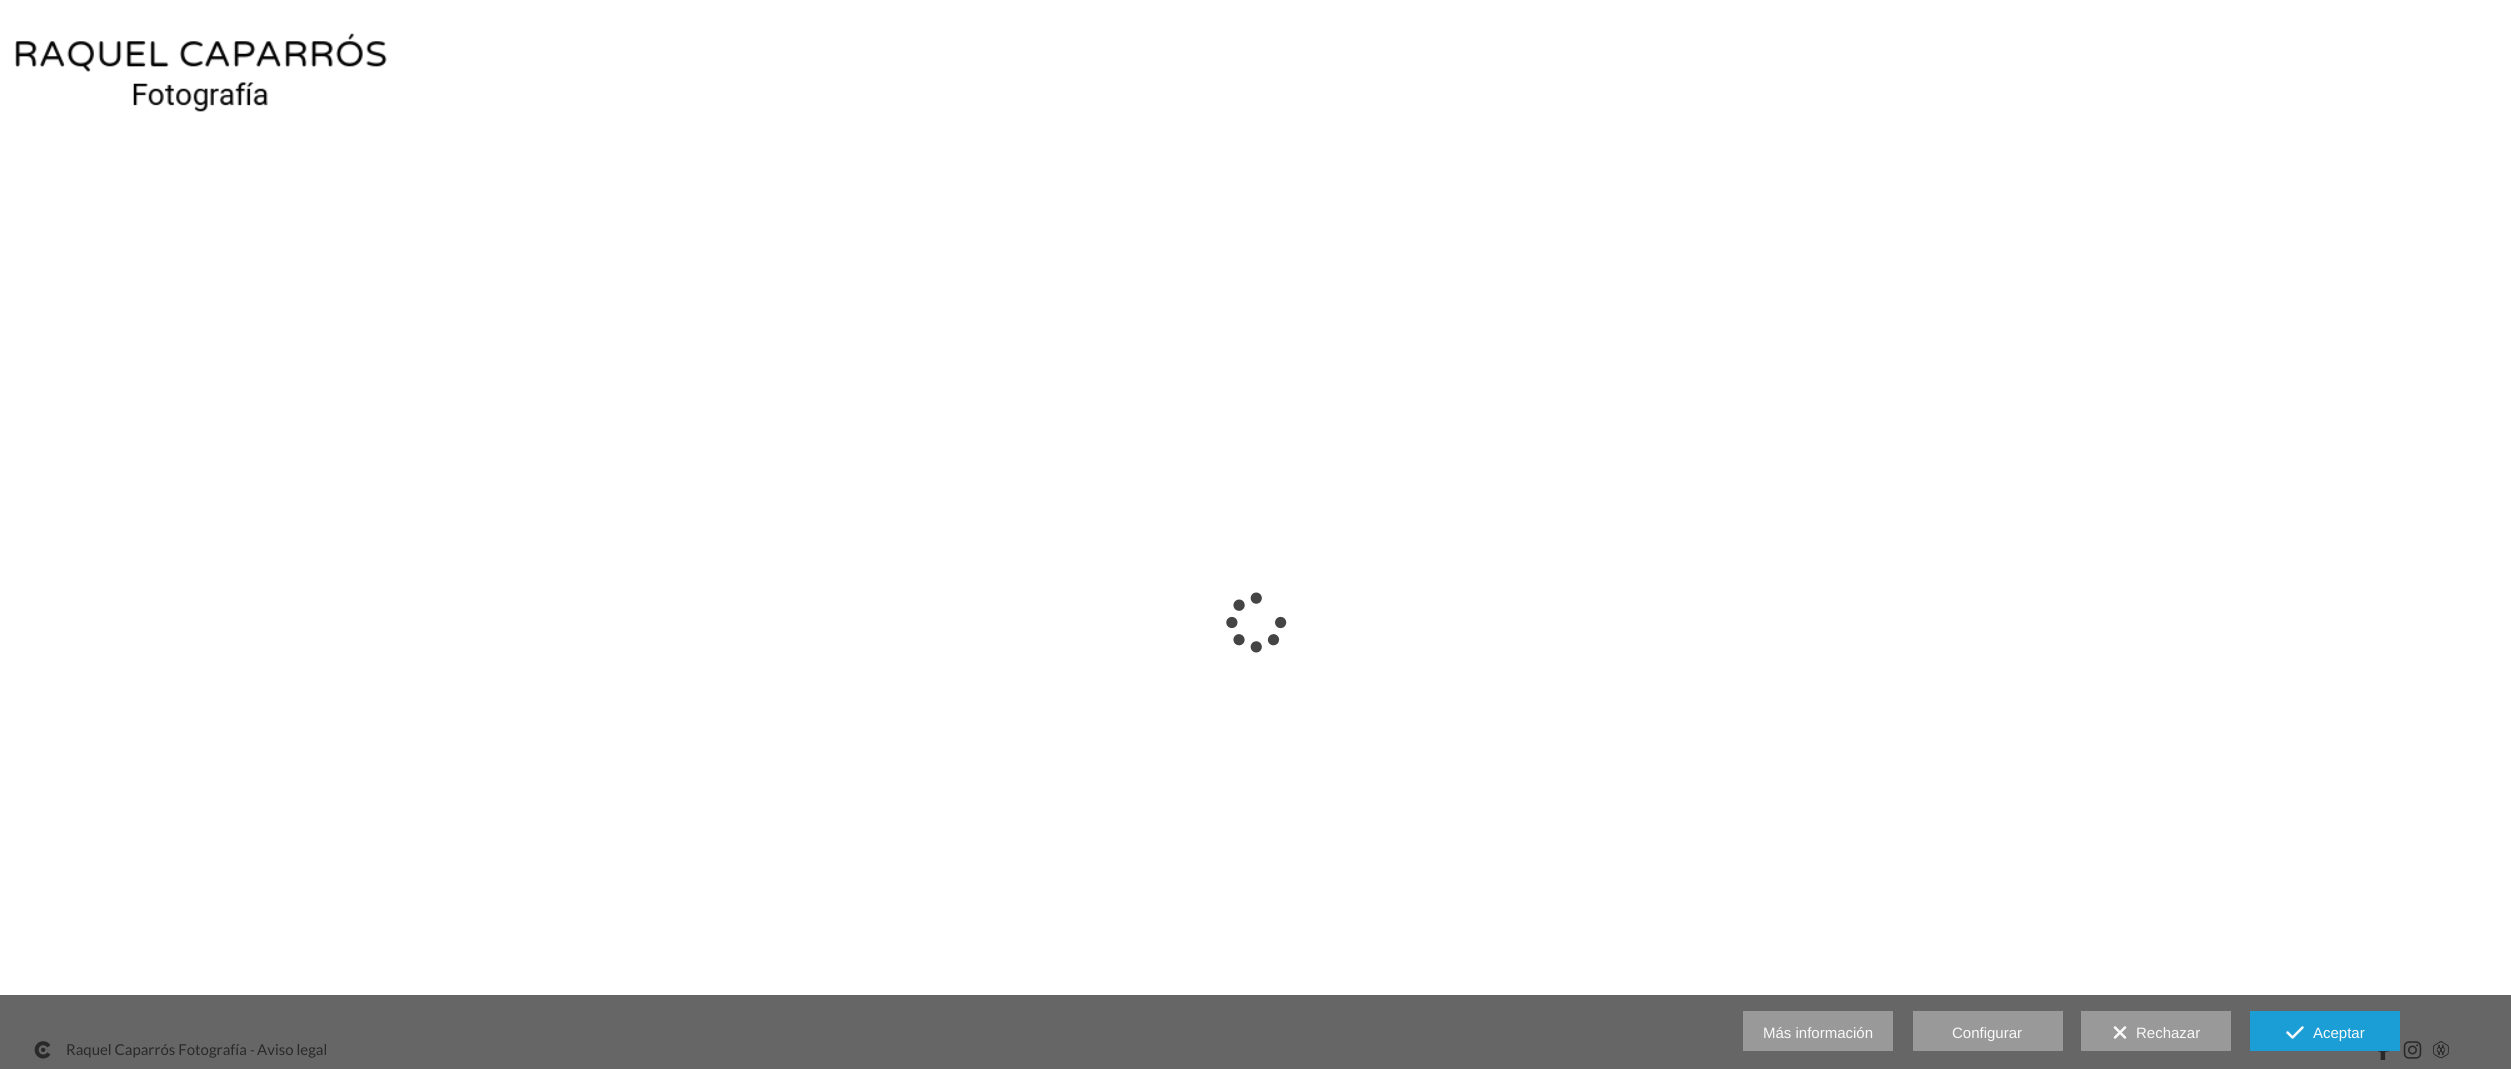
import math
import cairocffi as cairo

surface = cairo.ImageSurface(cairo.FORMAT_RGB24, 2511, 1069)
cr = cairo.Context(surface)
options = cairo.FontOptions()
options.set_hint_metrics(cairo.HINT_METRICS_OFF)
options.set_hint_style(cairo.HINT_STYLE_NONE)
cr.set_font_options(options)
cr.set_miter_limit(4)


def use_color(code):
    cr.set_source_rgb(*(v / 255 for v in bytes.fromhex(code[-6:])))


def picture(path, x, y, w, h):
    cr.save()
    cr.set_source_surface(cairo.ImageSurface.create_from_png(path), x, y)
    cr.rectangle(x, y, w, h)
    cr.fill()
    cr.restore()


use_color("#ffffff")
cr.paint()
use_color("#666666")
cr.rectangle(0, 995, 2511, 74)
cr.fill()
use_color("#999999")
cr.rectangle(1743, 1011, 150, 40)
cr.fill()
cr.select_font_face("Liberation Sans")
cr.set_font_size(15)
use_color("#f9f9f9")
cr.move_to(1763, 1038)
cr.show_text("Más información")
use_color("#999999")
cr.rectangle(1913, 1011, 150, 40)
cr.fill()
use_color("#f9f9f9")
cr.move_to(1952, 1038)
cr.show_text("Configurar")
use_color("#999999")
cr.rectangle(2081, 1011, 150, 40)
cr.fill()
picture("img1.png", 2113, 1026, 14, 13)
use_color("#f9f9f9")
cr.move_to(2136, 1038)
cr.show_text("Rechazar")
use_color("#1a9ed5")
cr.rectangle(2250, 1011, 150, 40)
cr.fill()
picture("img2.png", 2286, 1026, 18, 13)
use_color("#f9f9f9")
cr.move_to(2313, 1038)
cr.show_text("Aceptar")
picture("img3.png", 15, 33, 372, 79)
picture("img4.png", 1226, 592, 61, 61)
picture("img5.png", 34, 1041, 17, 18)
cr.select_font_face("Lato")
use_color("#292929")
cr.move_to(66, 1055)
cr.show_text("Raquel Caparrós Fotografía")
cr.set_font_size(14)
cr.move_to(250, 1055)
cr.show_text("-")
cr.set_font_size(15)
cr.move_to(257, 1055)
cr.show_text("Aviso legal")
picture("img6.png", 2378, 1051, 11, 9)
picture("img7.png", 2403, 1041, 19, 18)
picture("img8.png", 2433, 1041, 16, 18)
surface.write_to_png("result.png")
